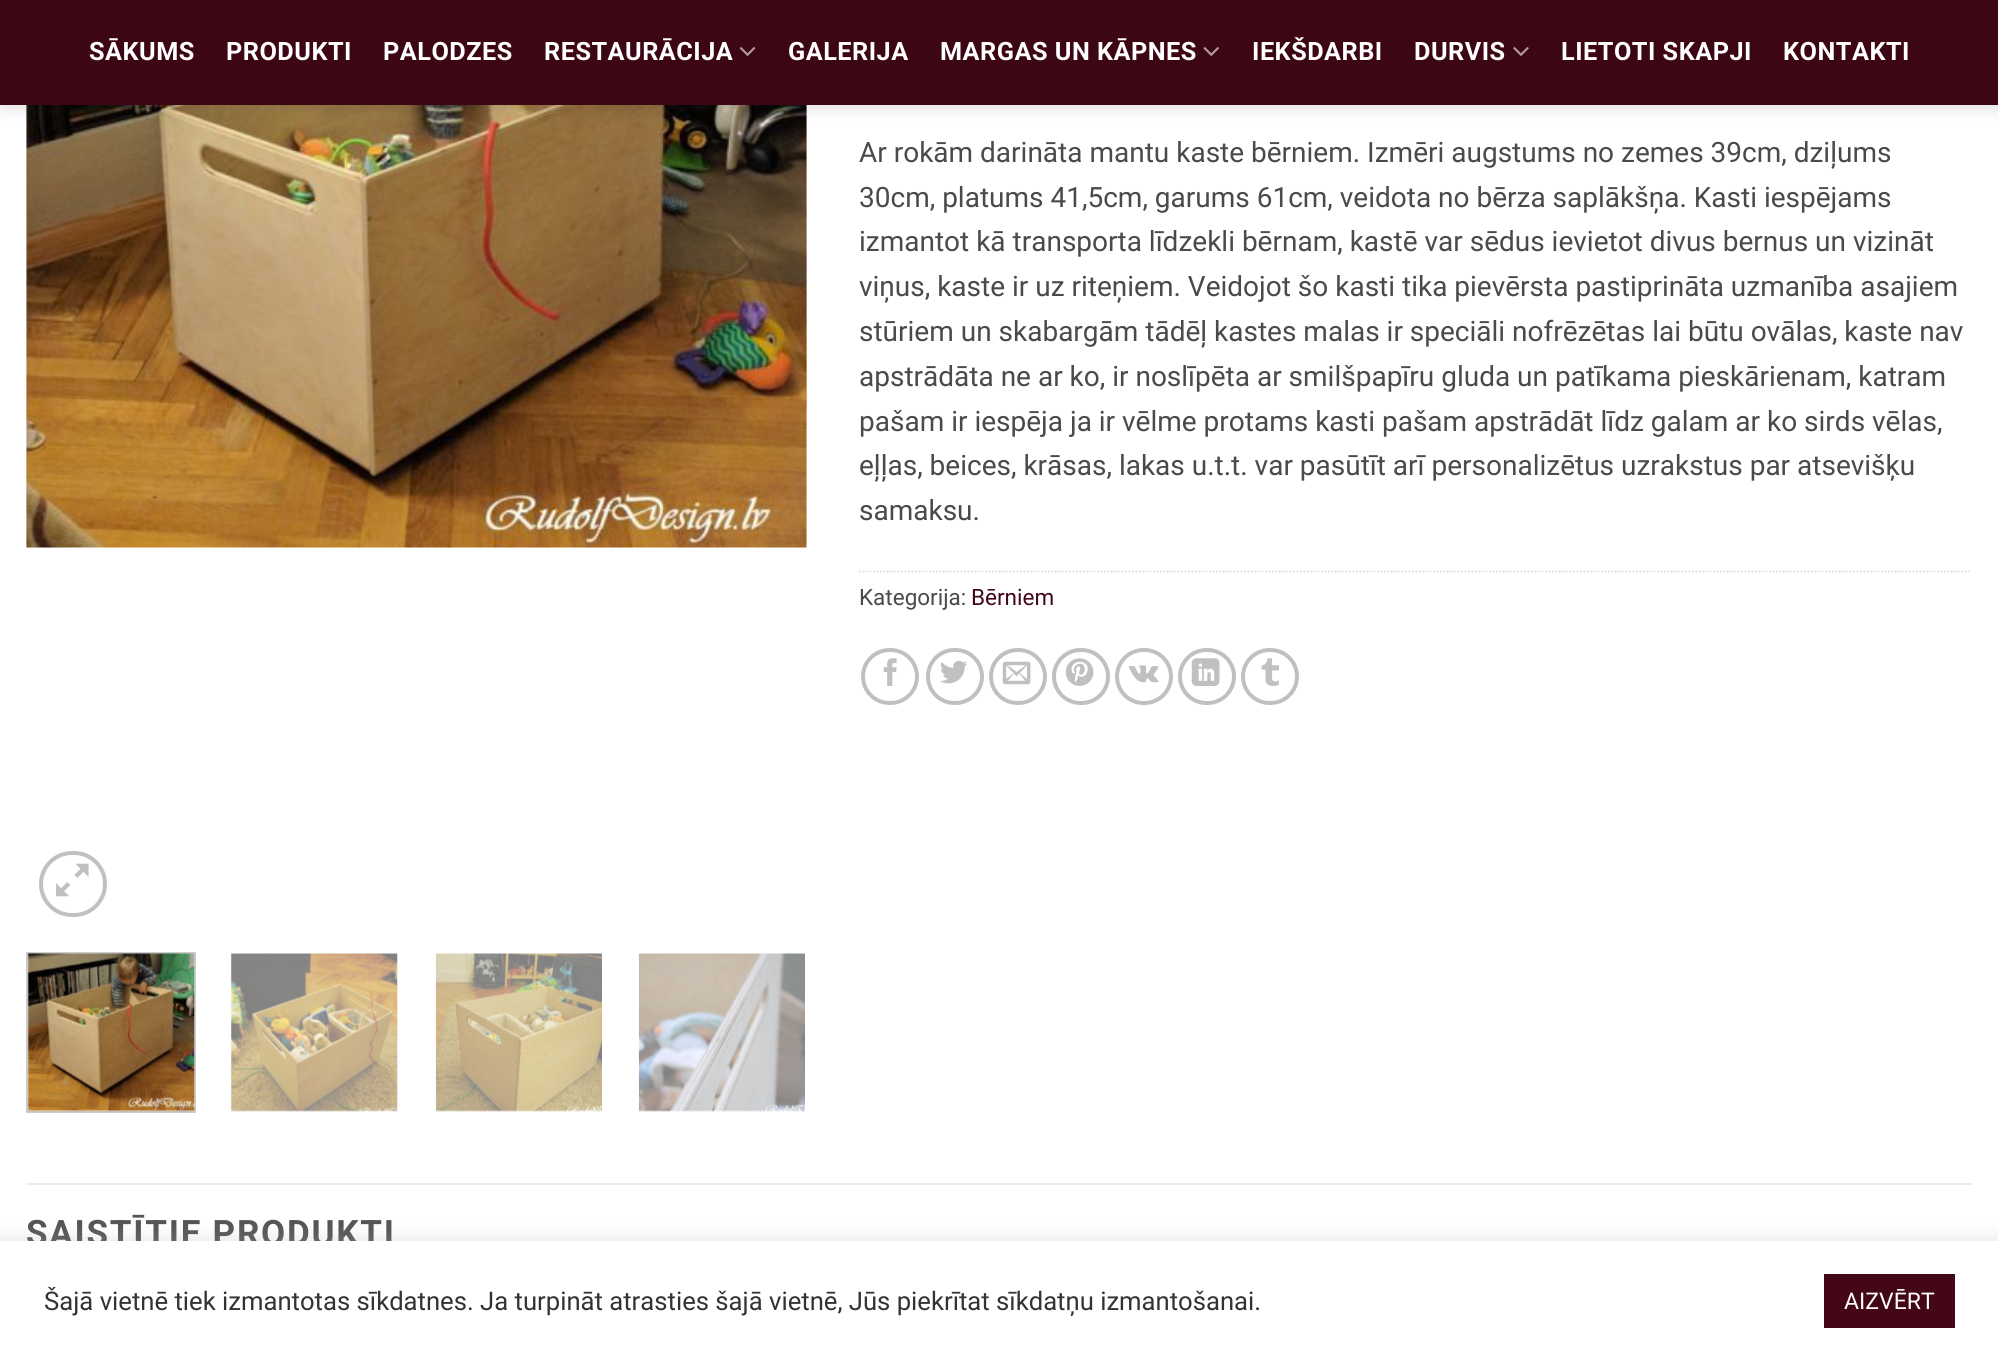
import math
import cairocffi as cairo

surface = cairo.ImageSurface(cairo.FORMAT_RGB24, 1998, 1360)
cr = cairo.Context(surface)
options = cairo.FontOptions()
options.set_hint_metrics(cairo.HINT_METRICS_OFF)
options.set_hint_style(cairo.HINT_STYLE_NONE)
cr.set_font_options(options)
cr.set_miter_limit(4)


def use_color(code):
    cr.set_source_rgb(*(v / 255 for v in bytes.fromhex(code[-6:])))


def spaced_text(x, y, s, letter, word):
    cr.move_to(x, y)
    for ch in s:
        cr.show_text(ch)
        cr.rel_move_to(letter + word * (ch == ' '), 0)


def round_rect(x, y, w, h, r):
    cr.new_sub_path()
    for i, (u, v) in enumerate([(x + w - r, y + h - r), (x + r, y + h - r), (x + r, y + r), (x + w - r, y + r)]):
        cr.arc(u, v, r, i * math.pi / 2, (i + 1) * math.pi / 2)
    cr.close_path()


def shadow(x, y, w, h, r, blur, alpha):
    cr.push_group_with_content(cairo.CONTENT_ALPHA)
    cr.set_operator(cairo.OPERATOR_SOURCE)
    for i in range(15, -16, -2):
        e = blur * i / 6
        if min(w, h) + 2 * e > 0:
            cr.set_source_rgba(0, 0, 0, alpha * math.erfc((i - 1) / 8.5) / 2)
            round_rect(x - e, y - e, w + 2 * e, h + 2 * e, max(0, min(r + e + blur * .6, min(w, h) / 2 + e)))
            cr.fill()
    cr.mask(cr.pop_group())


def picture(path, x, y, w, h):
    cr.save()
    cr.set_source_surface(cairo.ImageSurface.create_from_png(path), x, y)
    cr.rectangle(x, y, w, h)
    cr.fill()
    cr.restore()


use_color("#ffffff")
cr.paint()
picture("img4.png", 26, 105, 781, 443)
picture("img5.png", 806, 105, 1, 305)
use_color("#000000")
shadow(2, 2, 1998, 105, 0, 9, 0.15)
use_color("#3d0615")
cr.rectangle(0, 0, 1998, 105)
cr.fill()
cr.select_font_face("Roboto", cairo.FONT_SLANT_NORMAL, cairo.FONT_WEIGHT_BOLD)
cr.set_font_size(25.25)
use_color("#ffffff")
spaced_text(89, 60, "SĀKUMS", 0.5, 0)
spaced_text(226, 60, "PRODUKTI", 0.5, 0)
spaced_text(383, 60, "PALODZES", 0.5, 0)
spaced_text(544, 60, "RESTAURĀCIJA", 0.5, 0)
picture("img1.png", 739, 47, 17, 9)
spaced_text(788, 60, "GALERIJA", 0.5, 0)
spaced_text(940, 60, "MARGAS UN KĀPNES", 0.5, 0)
picture("img2.png", 1203, 47, 16, 9)
spaced_text(1252, 60, "IEKŠDARBI", 0.5, 0)
spaced_text(1414, 60, "DURVIS", 0.5, 0)
picture("img3.png", 1513, 47, 16, 9)
spaced_text(1561, 60, "LIETOTI SKAPJI", 0.5, 0)
spaced_text(1783, 60, "KONTAKTI", 0.5, 0)
round_rect(41, 853, 64, 62, 31)
use_color("#c0c0c0")
cr.set_line_width(4)
cr.stroke()
picture("img6.png", 56, 863, 33, 34)
cr.rectangle(27, 953, 168, 159)
use_color("#cccccc")
cr.set_line_width(2)
cr.stroke()
picture("img7.png", 27, 953, 168, 159)
picture("img8.png", 230, 953, 168, 159)
picture("img9.png", 435, 953, 167, 159)
picture("img10.png", 638, 953, 167, 159)
cr.select_font_face("Roboto")
cr.set_font_size(28)
use_color("#4a4a4a")
cr.move_to(859, 162)
cr.show_text("Ar rokām darināta mantu kaste bērniem. Izmēri augstums no zemes 39cm, dziļums")
cr.move_to(859, 207)
cr.show_text("30cm, platums 41,5cm, garums 61cm, veidota no bērza saplākšņa. Kasti iespējams")
cr.move_to(859, 251)
cr.show_text("izmantot kā transporta līdzekli bērnam, kastē var sēdus ievietot divus bernus un vizināt")
cr.move_to(859, 296)
cr.show_text("viņus, kaste ir uz riteņiem. Veidojot šo kasti tika pievērsta pastiprināta uzmanība asajiem")
cr.move_to(859, 341)
cr.show_text("stūriem un skabargām tādēļ kastes malas ir speciāli nofrēzētas lai būtu ovālas, kaste nav")
cr.move_to(859, 386)
cr.show_text("apstrādāta ne ar ko, ir noslīpēta ar smilšpapīru gluda un patīkama pieskārienam, katram")
cr.move_to(859, 431)
cr.show_text("pašam ir iespēja ja ir vēlme protams kasti pašam apstrādāt līdz galam ar ko sirds vēlas,")
cr.move_to(859, 475)
cr.show_text("eļļas, beices, krāsas, lakas u.t.t. var pasūtīt arī personalizētus uzrakstus par atsevišķu")
cr.move_to(859, 520)
cr.show_text("samaksu.")
cr.new_path()
cr.move_to(859, 571.5)
cr.line_to(1972, 571.5)
use_color("#dddddd")
cr.set_line_width(1.8)
cr.set_dash([1.75, 1.75])
cr.stroke()
cr.set_font_size(22.5)
use_color("#4a4a4a")
cr.move_to(859, 605)
cr.show_text("Kategorija:")
use_color("#440717")
cr.move_to(971, 605)
cr.show_text("Bērniem")
round_rect(863, 650, 54, 53, 26.5)
use_color("#c0c0c0")
cr.set_line_width(4)
cr.set_dash([])
cr.stroke()
picture("img11.png", 883, 658, 14, 28)
round_rect(928, 650, 54, 53, 26.5)
cr.stroke()
picture("img12.png", 940, 660, 28, 24)
round_rect(991, 650, 54, 53, 26.5)
cr.stroke()
picture("img13.png", 1002, 661, 29, 24)
round_rect(1054, 650, 54, 53, 26.5)
cr.stroke()
picture("img14.png", 1065, 658, 29, 28)
round_rect(1117, 650, 54, 53, 26.5)
cr.stroke()
picture("img15.png", 1128, 665, 31, 18)
round_rect(1180, 650, 54, 53, 26.5)
cr.stroke()
picture("img16.png", 1191, 658, 29, 28)
round_rect(1243, 650, 54, 53, 26.5)
cr.stroke()
picture("img17.png", 1261, 658, 18, 28)
use_color("#ececec")
cr.rectangle(26, 1183, 1946, 2)
cr.fill()
cr.select_font_face("Roboto", cairo.FONT_SLANT_NORMAL, cairo.FONT_WEIGHT_BOLD)
cr.set_font_size(35)
use_color("#555555")
spaced_text(26, 1245, "SAISTĪTIE PRODUKTI", 1.75, 0)
use_color("#acabab")
shadow(0, 1239, 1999, 121, 0, 9, 0.3)
use_color("#ffffff")
cr.rectangle(0, 1241, 1998, 119)
cr.fill()
cr.select_font_face("Roboto")
cr.set_font_size(25.65)
use_color("#333333")
cr.move_to(44, 1310)
cr.show_text("Šajā vietnē tiek izmantotas sīkdatnes. Ja turpināt atrasties šajā vietnē, Jūs piekrītat sīkdatņu izmantošanai.")
use_color("#440717")
cr.rectangle(1824, 1274, 131, 54)
cr.fill()
cr.set_font_size(23)
use_color("#ffffff")
cr.move_to(1844, 1309)
cr.show_text("AIZVĒRT")
surface.write_to_png("result.png")
